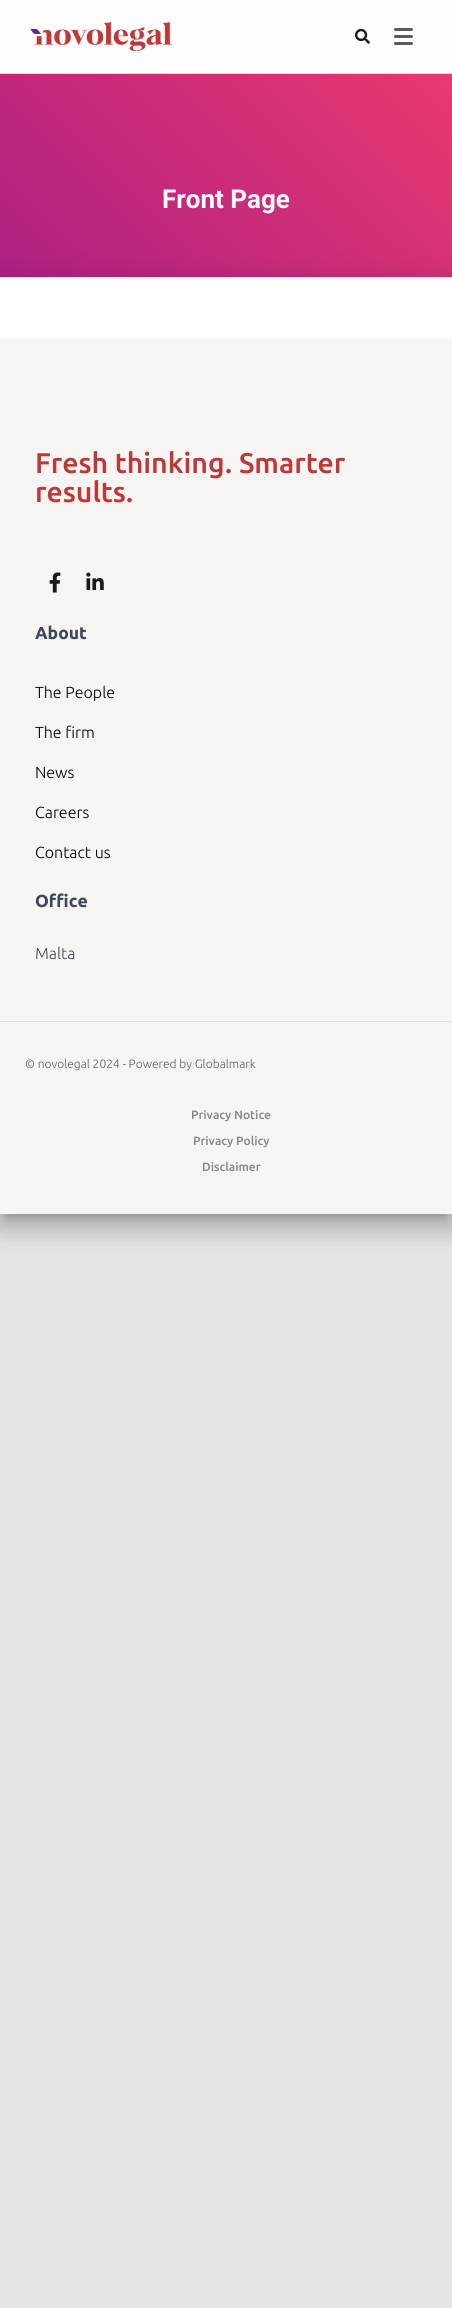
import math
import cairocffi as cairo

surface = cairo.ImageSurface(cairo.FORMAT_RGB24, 452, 2308)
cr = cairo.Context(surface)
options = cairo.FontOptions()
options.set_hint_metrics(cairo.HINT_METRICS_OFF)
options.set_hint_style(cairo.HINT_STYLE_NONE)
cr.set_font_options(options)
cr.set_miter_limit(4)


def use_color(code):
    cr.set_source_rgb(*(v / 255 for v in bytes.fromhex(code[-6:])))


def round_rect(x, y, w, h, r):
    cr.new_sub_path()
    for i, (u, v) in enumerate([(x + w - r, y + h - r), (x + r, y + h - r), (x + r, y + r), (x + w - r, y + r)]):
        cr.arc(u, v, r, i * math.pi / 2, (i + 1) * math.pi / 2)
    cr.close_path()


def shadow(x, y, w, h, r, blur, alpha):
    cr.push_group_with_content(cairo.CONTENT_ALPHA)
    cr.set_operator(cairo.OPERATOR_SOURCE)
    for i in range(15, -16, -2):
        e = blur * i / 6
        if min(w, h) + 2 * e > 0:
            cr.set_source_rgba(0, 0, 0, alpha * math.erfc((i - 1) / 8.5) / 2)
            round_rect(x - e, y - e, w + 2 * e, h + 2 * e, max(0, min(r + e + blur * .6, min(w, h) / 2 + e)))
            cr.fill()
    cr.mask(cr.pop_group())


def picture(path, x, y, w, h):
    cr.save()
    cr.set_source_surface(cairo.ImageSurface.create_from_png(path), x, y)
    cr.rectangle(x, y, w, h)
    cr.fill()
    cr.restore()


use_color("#e5e5e5")
cr.paint()
use_color("#fefefe")
cr.rectangle(0, 0, 452, 73)
cr.fill()
use_color("#dddddd")
cr.rectangle(0, 73, 452, 1)
cr.fill()
picture("img1.png", 30, 21, 142, 30)
picture("img2.png", 355, 28, 15, 16)
use_color("#5b5b5b")
round_rect(394, 28, 19, 3, 1.5)
cr.fill()
round_rect(394, 35, 19, 3, 1.5)
cr.fill()
round_rect(394, 42, 19, 3, 1.5)
cr.fill()
gradient = cairo.LinearGradient(44, 381, 408, 17)
gradient.add_color_stop_rgba(0, 0.659, 0.114, 0.518, 1)
gradient.add_color_stop_rgba(1, 0.918, 0.224, 0.435, 1)
cr.set_source(gradient)
cr.rectangle(0, 74, 452, 203)
cr.fill()
cr.select_font_face("Roboto", cairo.FONT_SLANT_NORMAL, cairo.FONT_WEIGHT_BOLD)
cr.set_font_size(26)
use_color("#ffffff")
cr.move_to(162, 208)
cr.show_text("Front Page")
use_color("#000000")
shadow(5, 290, 442, 927, 0, 5, 0.2)
shadow(-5, 278, 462, 947, 0, 15, 0.12)
shadow(-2, 291, 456, 941, 0, 12, 0.14)
use_color("#ffffff")
cr.rectangle(0, 277, 452, 61)
cr.fill()
use_color("#f6f5f4")
cr.rectangle(0, 338, 452, 683)
cr.fill()
use_color("#e2e1e0")
cr.rectangle(0, 1021, 452, 1)
cr.fill()
cr.select_font_face("Ubuntu Medium")
cr.set_font_size(28.5)
use_color("#bf3737")
cr.move_to(35, 473)
cr.show_text("Fresh thinking. Smarter")
cr.move_to(35, 502)
cr.show_text("results.")
picture("img3.png", 49, 572, 12, 21)
picture("img4.png", 86, 572, 18, 18)
cr.select_font_face("Ubuntu", cairo.FONT_SLANT_NORMAL, cairo.FONT_WEIGHT_BOLD)
cr.set_font_size(17.5)
use_color("#3c4858")
cr.move_to(35, 639)
cr.show_text("About")
cr.select_font_face("Ubuntu Light")
cr.set_font_size(16)
use_color("#020101")
cr.move_to(35, 698)
cr.show_text("The People")
cr.move_to(35, 738)
cr.show_text("The firm")
cr.move_to(35, 778)
cr.show_text("News")
cr.move_to(35, 818)
cr.show_text("Careers")
cr.move_to(35, 858)
cr.show_text("Contact us")
cr.select_font_face("Ubuntu", cairo.FONT_SLANT_NORMAL, cairo.FONT_WEIGHT_BOLD)
cr.set_font_size(17.5)
use_color("#3c4858")
cr.move_to(35, 907)
cr.show_text("Office")
cr.select_font_face("Ubuntu Light")
cr.set_font_size(16)
cr.move_to(35, 959)
cr.show_text("Malta")
use_color("#f6f5f4")
cr.rectangle(0, 1022, 452, 192)
cr.fill()
cr.set_font_size(12)
use_color("#5b5b5b")
cr.move_to(25, 1068)
cr.show_text("© novolegal 2024 - Powered by Globalmark")
cr.select_font_face("Ubuntu Medium")
use_color("#878681")
cr.move_to(191, 1119)
cr.show_text("Privacy Notice")
cr.move_to(193, 1145)
cr.show_text("Privacy Policy")
cr.move_to(202, 1171)
cr.show_text("Disclaimer")
surface.write_to_png("result.png")
